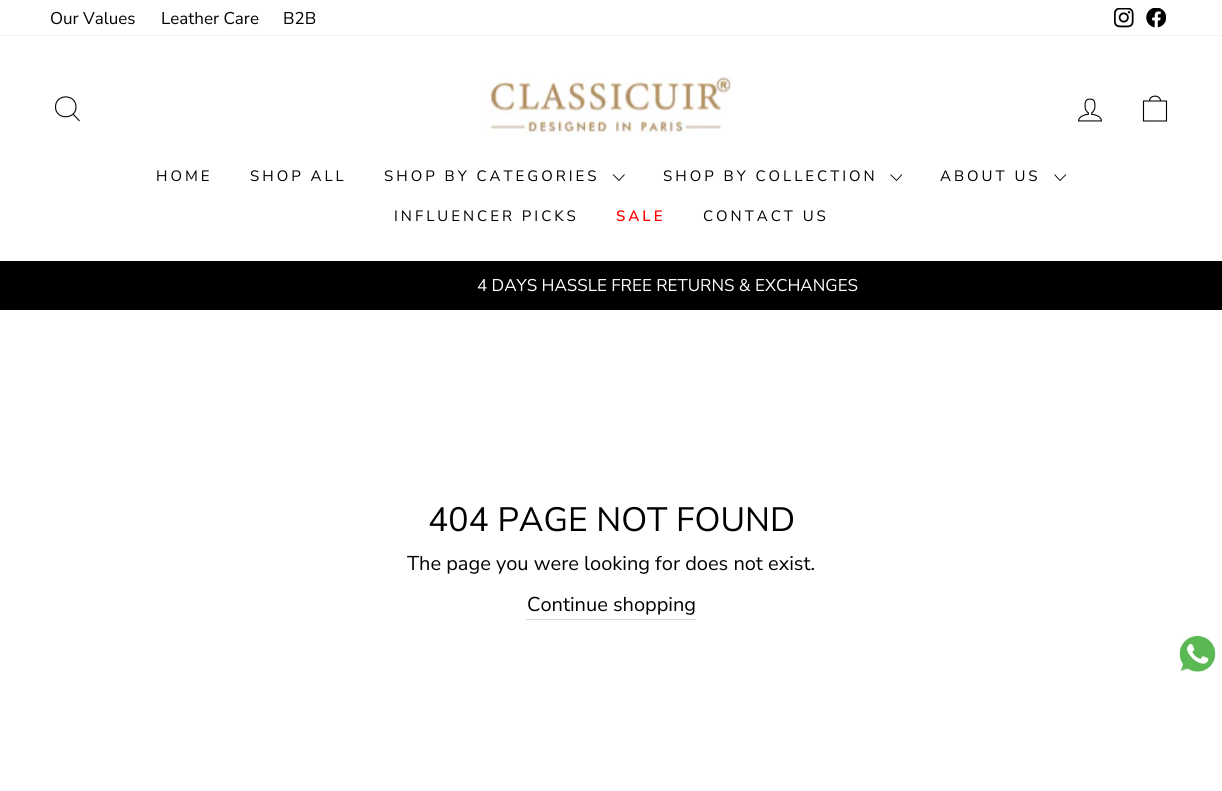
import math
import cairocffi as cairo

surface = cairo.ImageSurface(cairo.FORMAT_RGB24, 1222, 791)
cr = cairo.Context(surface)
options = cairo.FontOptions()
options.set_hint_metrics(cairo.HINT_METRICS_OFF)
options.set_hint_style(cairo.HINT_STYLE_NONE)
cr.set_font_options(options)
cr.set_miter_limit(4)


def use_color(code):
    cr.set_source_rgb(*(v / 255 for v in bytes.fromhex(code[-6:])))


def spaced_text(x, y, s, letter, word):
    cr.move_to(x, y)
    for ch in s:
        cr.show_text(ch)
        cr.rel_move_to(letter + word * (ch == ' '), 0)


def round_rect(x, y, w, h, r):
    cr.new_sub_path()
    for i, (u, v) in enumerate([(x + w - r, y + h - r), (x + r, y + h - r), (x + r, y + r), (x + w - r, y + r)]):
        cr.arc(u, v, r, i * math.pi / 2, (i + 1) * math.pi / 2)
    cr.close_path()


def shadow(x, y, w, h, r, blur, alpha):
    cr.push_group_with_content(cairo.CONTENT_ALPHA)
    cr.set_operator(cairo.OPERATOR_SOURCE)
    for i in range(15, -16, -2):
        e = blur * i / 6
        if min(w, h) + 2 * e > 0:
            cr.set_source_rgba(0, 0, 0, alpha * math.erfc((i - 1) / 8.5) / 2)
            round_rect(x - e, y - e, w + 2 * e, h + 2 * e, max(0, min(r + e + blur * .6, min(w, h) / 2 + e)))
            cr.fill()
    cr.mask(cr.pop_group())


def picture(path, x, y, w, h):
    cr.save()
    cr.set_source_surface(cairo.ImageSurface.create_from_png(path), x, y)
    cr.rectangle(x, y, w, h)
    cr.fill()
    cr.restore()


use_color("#ffffff")
cr.paint()
cr.select_font_face("Nunito Sans")
cr.set_font_size(17)
use_color("#000000")
cr.move_to(50, 24)
cr.show_text("Our Values")
cr.move_to(161, 24)
cr.show_text("Leather Care")
cr.move_to(283, 24)
cr.show_text("B2B")
picture("img1.png", 1114, 8, 20, 20)
picture("img2.png", 1146, 8, 20, 20)
cr.rectangle(0, 261, 1222, 49)
cr.fill()
use_color("#000000")
shadow(0, 36, 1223, 225, 0, 0.5, 0.2)
use_color("#ffffff")
cr.rectangle(0, 36, 1222, 225)
cr.fill()
cr.new_path()
cr.move_to(76, 107)
cr.curve_to(76, 120, 55.5, 120, 55.5, 107)
cr.curve_to(55.5, 93.5, 76, 93.5, 76, 107)
cr.close_path()
cr.move_to(79.5, 121)
cr.line_to(73, 114)
use_color("#000000")
cr.set_line_width(1.1)
cr.stroke()
picture("img3.png", 486, 77, 246, 58)
picture("img4.png", 1078, 98, 24, 24)
cr.new_path()
cr.move_to(1143.5, 101)
cr.line_to(1166.5, 101)
cr.line_to(1166.5, 121)
cr.line_to(1143.5, 121)
cr.close_path()
cr.move_to(1149.5, 101)
cr.curve_to(1149.5, 94.5, 1160.5, 94.5, 1160.5, 101)
cr.stroke()
cr.set_font_size(15)
spaced_text(156, 181, "HOME", 3, 0)
spaced_text(250, 181, "SHOP ALL", 3, 0)
spaced_text(384, 181, "SHOP BY CATEGORIES", 3, 0)
cr.new_path()
cr.move_to(613, 174.5)
cr.line_to(619, 180.5)
cr.line_to(624.5, 174.5)
cr.set_line_width(0.9)
cr.stroke()
spaced_text(663, 181, "SHOP BY COLLECTION", 3, 0)
cr.new_path()
cr.move_to(890.5, 174.5)
cr.line_to(896.5, 180.5)
cr.line_to(902, 174.5)
cr.stroke()
spaced_text(940, 181, "ABOUT US", 3, 0)
cr.new_path()
cr.move_to(1054.5, 174.5)
cr.line_to(1060, 180.5)
cr.line_to(1066, 174.5)
cr.stroke()
spaced_text(394, 221, "INFLUENCER PICKS", 3, 0)
cr.select_font_face("Nunito Sans SemiBold")
use_color("#ff0000")
spaced_text(616, 221, "SALE", 3, 0)
cr.select_font_face("Nunito Sans")
use_color("#000000")
spaced_text(703, 221, "CONTACT US", 3, 0)
cr.set_font_size(17)
use_color("#ffffff")
cr.move_to(477, 291)
cr.show_text("4 DAYS HASSLE FREE RETURNS & EXCHANGES")
cr.set_font_size(33.75)
use_color("#000000")
cr.move_to(428, 531)
cr.show_text("404 PAGE NOT FOUND")
cr.set_font_size(20)
cr.move_to(407, 570)
cr.show_text("The page you were looking for does not exist.")
use_color("#d9d9d9")
cr.rectangle(526, 619, 170, 1)
cr.fill()
use_color("#000000")
cr.move_to(527, 611)
cr.show_text("Continue shopping")
picture("img5.png", 1179, 635, 37, 37)
surface.write_to_png("result.png")
